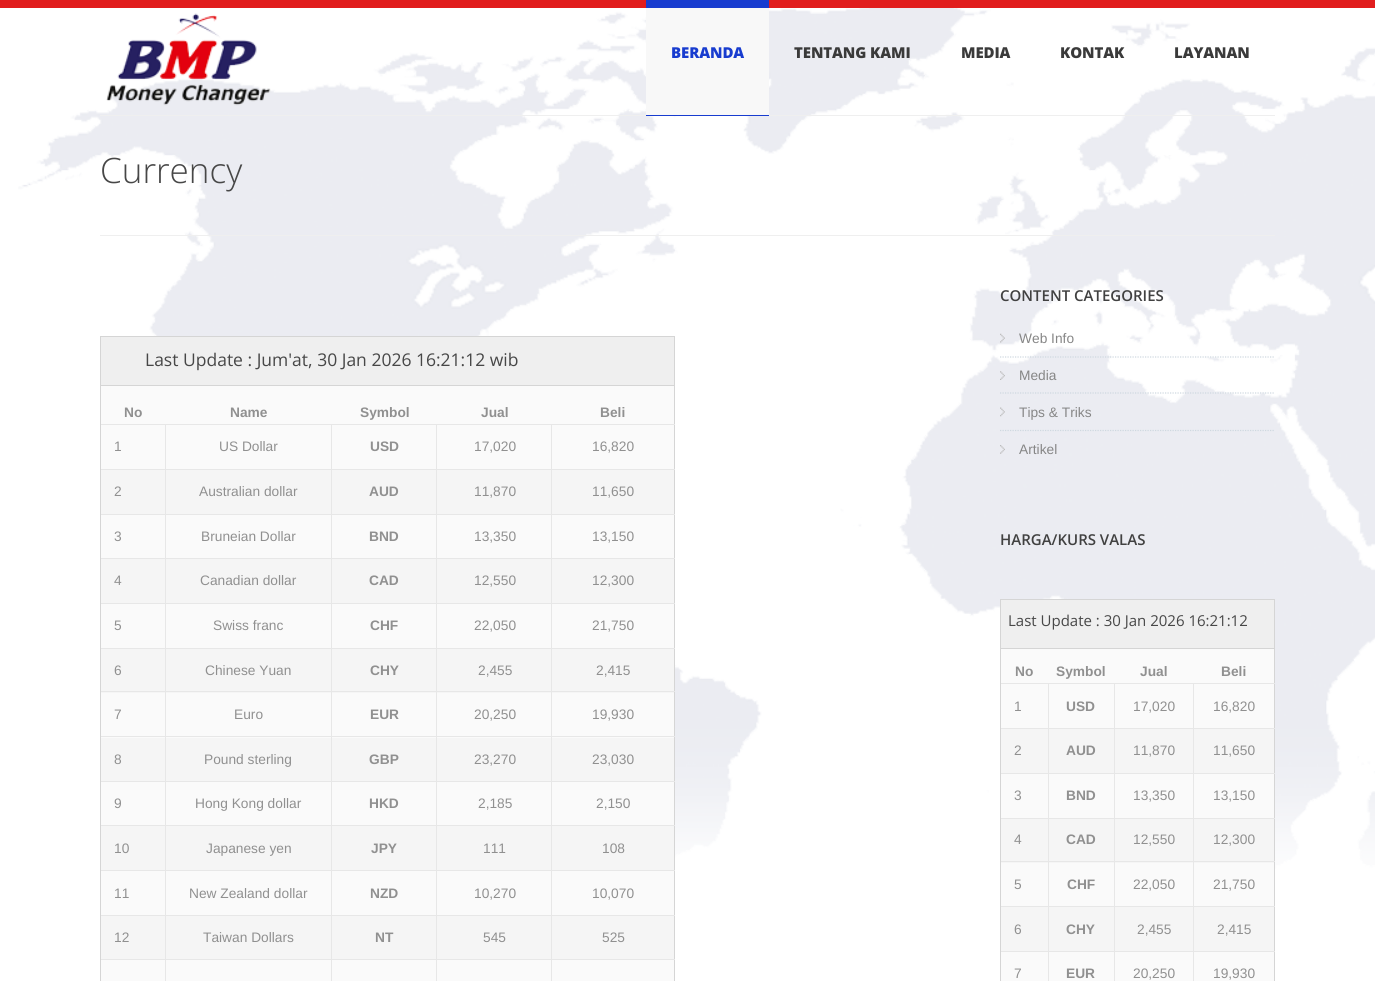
import math
import cairocffi as cairo

surface = cairo.ImageSurface(cairo.FORMAT_RGB24, 1375, 981)
cr = cairo.Context(surface)
options = cairo.FontOptions()
options.set_hint_metrics(cairo.HINT_METRICS_OFF)
options.set_hint_style(cairo.HINT_STYLE_NONE)
cr.set_font_options(options)
cr.set_miter_limit(4)


def use_color(code):
    cr.set_source_rgb(*(v / 255 for v in bytes.fromhex(code[-6:])))


def spaced_text(x, y, s, letter, word):
    cr.move_to(x, y)
    for ch in s:
        cr.show_text(ch)
        cr.rel_move_to(letter + word * (ch == ' '), 0)


def picture(path, x, y, w, h):
    cr.save()
    cr.set_source_surface(cairo.ImageSurface.create_from_png(path), x, y)
    cr.rectangle(x, y, w, h)
    cr.fill()
    cr.restore()


use_color("#ffffff")
cr.paint()
picture("img1.png", 18, 8, 1357, 861)
use_color("#e11d1d")
cr.rectangle(0, 0, 1375, 8)
cr.fill()
use_color("#efefef")
cr.rectangle(100, 115, 1175, 1)
cr.fill()
picture("img2.png", 106, 13, 165, 93)
use_color("#f8f8f8")
cr.rectangle(646, 8, 123, 107)
cr.fill()
use_color("#183ccf")
cr.rectangle(646, 0, 123, 8)
cr.fill()
cr.rectangle(646, 115, 123, 1)
cr.fill()
cr.select_font_face("Open Sans ExtraBold")
cr.set_font_size(15)
spaced_text(671, 58, "BERANDA", -0.1, 0)
use_color("#3a3a3a")
spaced_text(794, 58, "TENTANG KAMI", -0.1, 0)
spaced_text(961, 58, "MEDIA", -0.1, 0)
spaced_text(1060, 58, "KONTAK", -0.1, 0)
spaced_text(1174, 58, "LAYANAN", -0.1, 0)
use_color("#efefef")
cr.rectangle(100, 235, 1175, 1)
cr.fill()
cr.select_font_face("Open Sans Light")
cr.set_font_size(35)
use_color("#474747")
cr.move_to(100, 183)
cr.show_text("Currency")
use_color("#fafafa")
cr.rectangle(101, 386, 573, 595)
cr.fill()
use_color("#d5d5d5")
cr.rectangle(674, 336, 1, 645)
cr.fill()
cr.rectangle(100, 336, 1, 645)
cr.fill()
use_color("#efefef")
cr.rectangle(101, 337, 573, 48)
cr.fill()
use_color("#d5d5d5")
cr.rectangle(101, 336, 573, 1)
cr.fill()
cr.rectangle(101, 385, 573, 1)
cr.fill()
cr.select_font_face("Open Sans")
cr.set_font_size(17.5)
use_color("#474747")
cr.move_to(145, 366)
cr.show_text("Last Update : Jum'at, 30 Jan 2026 16:21:12 wib")
cr.select_font_face("Liberation Sans", cairo.FONT_SLANT_NORMAL, cairo.FONT_WEIGHT_BOLD)
cr.set_font_size(13.75)
use_color("#909090")
cr.move_to(124, 417)
cr.show_text("No")
cr.move_to(230, 417)
cr.show_text("Name")
cr.move_to(360, 417)
cr.show_text("Symbol")
cr.move_to(481, 417)
cr.show_text("Jual")
cr.move_to(600, 417)
cr.show_text("Beli")
use_color("#e7e7e7")
cr.rectangle(101, 959, 574, 1)
cr.fill()
cr.rectangle(101, 424, 574, 1)
cr.fill()
use_color("#f5f5f5")
cr.rectangle(101, 470, 573, 44)
cr.fill()
use_color("#e7e7e7")
cr.rectangle(101, 469, 574, 1)
cr.fill()
cr.rectangle(101, 514, 574, 1)
cr.fill()
use_color("#f5f5f5")
cr.rectangle(101, 559, 573, 44)
cr.fill()
use_color("#e7e7e7")
cr.rectangle(101, 558, 574, 1)
cr.fill()
cr.rectangle(101, 603, 574, 1)
cr.fill()
use_color("#f5f5f5")
cr.rectangle(101, 649, 573, 44)
cr.fill()
use_color("#e7e7e7")
cr.rectangle(101, 648, 574, 1)
cr.fill()
cr.rectangle(101, 691, 574, 1)
cr.fill()
use_color("#f5f5f5")
cr.rectangle(101, 738, 573, 43)
cr.fill()
use_color("#e7e7e7")
cr.rectangle(101, 736, 574, 1)
cr.fill()
cr.rectangle(101, 781, 574, 1)
cr.fill()
use_color("#f5f5f5")
cr.rectangle(101, 826, 573, 44)
cr.fill()
use_color("#e7e7e7")
cr.rectangle(101, 825, 574, 1)
cr.fill()
cr.rectangle(101, 870, 574, 1)
cr.fill()
use_color("#f5f5f5")
cr.rectangle(101, 916, 573, 43)
cr.fill()
use_color("#e7e7e7")
cr.rectangle(101, 915, 574, 1)
cr.fill()
cr.rectangle(165, 424, 1, 557)
cr.fill()
cr.rectangle(331, 424, 1, 557)
cr.fill()
cr.rectangle(436, 424, 1, 557)
cr.fill()
cr.rectangle(551, 424, 1, 557)
cr.fill()
cr.select_font_face("Liberation Sans")
use_color("#909090")
cr.move_to(114, 451)
cr.show_text("1")
cr.move_to(219, 451)
cr.show_text("US Dollar")
cr.select_font_face("Liberation Sans", cairo.FONT_SLANT_NORMAL, cairo.FONT_WEIGHT_BOLD)
cr.move_to(370, 451)
cr.show_text("USD")
cr.select_font_face("Liberation Sans")
cr.move_to(474, 451)
cr.show_text("17,020")
cr.move_to(592, 451)
cr.show_text("16,820")
cr.move_to(114, 496)
cr.show_text("2")
cr.move_to(199, 496)
cr.show_text("Australian dollar")
cr.select_font_face("Liberation Sans", cairo.FONT_SLANT_NORMAL, cairo.FONT_WEIGHT_BOLD)
cr.move_to(369, 496)
cr.show_text("AUD")
cr.select_font_face("Liberation Sans")
cr.move_to(474, 496)
cr.show_text("11,870")
cr.move_to(592, 496)
cr.show_text("11,650")
cr.move_to(114, 541)
cr.show_text("3")
cr.move_to(201, 541)
cr.show_text("Bruneian Dollar")
cr.select_font_face("Liberation Sans", cairo.FONT_SLANT_NORMAL, cairo.FONT_WEIGHT_BOLD)
cr.move_to(369, 541)
cr.show_text("BND")
cr.select_font_face("Liberation Sans")
cr.move_to(474, 541)
cr.show_text("13,350")
cr.move_to(592, 541)
cr.show_text("13,150")
cr.move_to(114, 585)
cr.show_text("4")
cr.move_to(200, 585)
cr.show_text("Canadian dollar")
cr.select_font_face("Liberation Sans", cairo.FONT_SLANT_NORMAL, cairo.FONT_WEIGHT_BOLD)
cr.move_to(369, 585)
cr.show_text("CAD")
cr.select_font_face("Liberation Sans")
cr.move_to(474, 585)
cr.show_text("12,550")
cr.move_to(592, 585)
cr.show_text("12,300")
cr.move_to(114, 630)
cr.show_text("5")
cr.move_to(213, 630)
cr.show_text("Swiss franc")
cr.select_font_face("Liberation Sans", cairo.FONT_SLANT_NORMAL, cairo.FONT_WEIGHT_BOLD)
cr.move_to(370, 630)
cr.show_text("CHF")
cr.select_font_face("Liberation Sans")
cr.move_to(474, 630)
cr.show_text("22,050")
cr.move_to(592, 630)
cr.show_text("21,750")
cr.move_to(114, 675)
cr.show_text("6")
cr.move_to(205, 675)
cr.show_text("Chinese Yuan")
cr.select_font_face("Liberation Sans", cairo.FONT_SLANT_NORMAL, cairo.FONT_WEIGHT_BOLD)
cr.move_to(370, 675)
cr.show_text("CHY")
cr.select_font_face("Liberation Sans")
cr.move_to(478, 675)
cr.show_text("2,455")
cr.move_to(596, 675)
cr.show_text("2,415")
cr.move_to(114, 719)
cr.show_text("7")
cr.move_to(234, 719)
cr.show_text("Euro")
cr.select_font_face("Liberation Sans", cairo.FONT_SLANT_NORMAL, cairo.FONT_WEIGHT_BOLD)
cr.move_to(370, 719)
cr.show_text("EUR")
cr.select_font_face("Liberation Sans")
cr.move_to(474, 719)
cr.show_text("20,250")
cr.move_to(592, 719)
cr.show_text("19,930")
cr.move_to(114, 764)
cr.show_text("8")
cr.move_to(204, 764)
cr.show_text("Pound sterling")
cr.select_font_face("Liberation Sans", cairo.FONT_SLANT_NORMAL, cairo.FONT_WEIGHT_BOLD)
cr.move_to(369, 764)
cr.show_text("GBP")
cr.select_font_face("Liberation Sans")
cr.move_to(474, 764)
cr.show_text("23,270")
cr.move_to(592, 764)
cr.show_text("23,030")
cr.move_to(114, 808)
cr.show_text("9")
cr.move_to(195, 808)
cr.show_text("Hong Kong dollar")
cr.select_font_face("Liberation Sans", cairo.FONT_SLANT_NORMAL, cairo.FONT_WEIGHT_BOLD)
cr.move_to(369, 808)
cr.show_text("HKD")
cr.select_font_face("Liberation Sans")
cr.move_to(478, 808)
cr.show_text("2,185")
cr.move_to(596, 808)
cr.show_text("2,150")
cr.move_to(114, 853)
cr.show_text("10")
cr.move_to(206, 853)
cr.show_text("Japanese yen")
cr.select_font_face("Liberation Sans", cairo.FONT_SLANT_NORMAL, cairo.FONT_WEIGHT_BOLD)
cr.move_to(371, 853)
cr.show_text("JPY")
cr.select_font_face("Liberation Sans")
cr.move_to(483, 853)
cr.show_text("111")
cr.move_to(602, 853)
cr.show_text("108")
cr.move_to(114, 898)
cr.show_text("11")
cr.move_to(189, 898)
cr.show_text("New Zealand dollar")
cr.select_font_face("Liberation Sans", cairo.FONT_SLANT_NORMAL, cairo.FONT_WEIGHT_BOLD)
cr.move_to(370, 898)
cr.show_text("NZD")
cr.select_font_face("Liberation Sans")
cr.move_to(474, 898)
cr.show_text("10,270")
cr.move_to(592, 898)
cr.show_text("10,070")
cr.move_to(114, 942)
cr.show_text("12")
cr.move_to(203, 942)
cr.show_text("Taiwan Dollars")
cr.select_font_face("Liberation Sans", cairo.FONT_SLANT_NORMAL, cairo.FONT_WEIGHT_BOLD)
cr.move_to(375, 942)
cr.show_text("NT")
cr.select_font_face("Liberation Sans")
cr.move_to(483, 942)
cr.show_text("545")
cr.move_to(602, 942)
cr.show_text("525")
cr.select_font_face("Open Sans SemiBold")
cr.set_font_size(15)
use_color("#414141")
cr.move_to(1000, 301)
cr.show_text("CONTENT CATEGORIES")
picture("img3.png", 1000, 333, 5, 10)
cr.new_path()
cr.move_to(1000, 357)
cr.line_to(1275, 357)
use_color("#ced8df")
cr.set_line_width(1.2)
cr.set_dash([1.25, 1.25])
cr.stroke()
cr.select_font_face("Liberation Sans")
cr.set_font_size(13.75)
use_color("#868686")
cr.move_to(1019, 343)
cr.show_text("Web Info")
picture("img4.png", 1000, 371, 5, 9)
cr.new_path()
cr.move_to(1000, 393)
cr.line_to(1275, 393)
use_color("#ced8df")
cr.stroke()
use_color("#868686")
cr.move_to(1019, 380)
cr.show_text("Media")
picture("img5.png", 1000, 407, 5, 10)
cr.new_path()
cr.move_to(1000, 430.5)
cr.line_to(1275, 430.5)
use_color("#ced8df")
cr.stroke()
use_color("#868686")
cr.move_to(1019, 417)
cr.show_text("Tips & Triks")
picture("img6.png", 1000, 445, 5, 9)
cr.move_to(1019, 454)
cr.show_text("Artikel")
cr.select_font_face("Open Sans SemiBold")
cr.set_font_size(15)
use_color("#414141")
cr.move_to(1000, 545)
cr.show_text("HARGA/KURS VALAS")
use_color("#fafafa")
cr.rectangle(1001, 649, 273, 332)
cr.fill()
use_color("#d5d5d5")
cr.rectangle(1274, 599, 1, 382)
cr.fill()
cr.rectangle(1000, 599, 1, 382)
cr.fill()
use_color("#efefef")
cr.rectangle(1001, 600, 273, 48)
cr.fill()
use_color("#d5d5d5")
cr.rectangle(1001, 599, 273, 1)
cr.fill()
cr.rectangle(1001, 648, 273, 1)
cr.fill()
cr.select_font_face("Open Sans")
use_color("#474747")
cr.move_to(1008, 626)
cr.show_text("Last Update : 30 Jan 2026 16:21:12")
cr.select_font_face("Liberation Sans", cairo.FONT_SLANT_NORMAL, cairo.FONT_WEIGHT_BOLD)
cr.set_font_size(13.75)
use_color("#909090")
cr.move_to(1015, 676)
cr.show_text("No")
cr.move_to(1056, 676)
cr.show_text("Symbol")
cr.move_to(1140, 676)
cr.show_text("Jual")
cr.move_to(1221, 676)
cr.show_text("Beli")
use_color("#e7e7e7")
cr.rectangle(1001, 683, 274, 1)
cr.fill()
cr.select_font_face("Liberation Sans")
use_color("#909090")
cr.move_to(1014, 711)
cr.show_text("1")
cr.select_font_face("Liberation Sans", cairo.FONT_SLANT_NORMAL, cairo.FONT_WEIGHT_BOLD)
cr.move_to(1066, 711)
cr.show_text("USD")
cr.select_font_face("Liberation Sans")
cr.move_to(1133, 711)
cr.show_text("17,020")
cr.move_to(1213, 711)
cr.show_text("16,820")
use_color("#f5f5f5")
cr.rectangle(1001, 729, 273, 44)
cr.fill()
use_color("#e7e7e7")
cr.rectangle(1001, 728, 274, 1)
cr.fill()
use_color("#909090")
cr.move_to(1014, 755)
cr.show_text("2")
cr.select_font_face("Liberation Sans", cairo.FONT_SLANT_NORMAL, cairo.FONT_WEIGHT_BOLD)
cr.move_to(1066, 755)
cr.show_text("AUD")
cr.select_font_face("Liberation Sans")
cr.move_to(1133, 755)
cr.show_text("11,870")
cr.move_to(1213, 755)
cr.show_text("11,650")
use_color("#e7e7e7")
cr.rectangle(1001, 773, 274, 1)
cr.fill()
use_color("#909090")
cr.move_to(1014, 800)
cr.show_text("3")
cr.select_font_face("Liberation Sans", cairo.FONT_SLANT_NORMAL, cairo.FONT_WEIGHT_BOLD)
cr.move_to(1066, 800)
cr.show_text("BND")
cr.select_font_face("Liberation Sans")
cr.move_to(1133, 800)
cr.show_text("13,350")
cr.move_to(1213, 800)
cr.show_text("13,150")
use_color("#f5f5f5")
cr.rectangle(1001, 819, 273, 44)
cr.fill()
use_color("#e7e7e7")
cr.rectangle(1001, 818, 274, 1)
cr.fill()
use_color("#909090")
cr.move_to(1014, 844)
cr.show_text("4")
cr.select_font_face("Liberation Sans", cairo.FONT_SLANT_NORMAL, cairo.FONT_WEIGHT_BOLD)
cr.move_to(1066, 844)
cr.show_text("CAD")
cr.select_font_face("Liberation Sans")
cr.move_to(1133, 844)
cr.show_text("12,550")
cr.move_to(1213, 844)
cr.show_text("12,300")
use_color("#e7e7e7")
cr.rectangle(1001, 861, 274, 1)
cr.fill()
use_color("#909090")
cr.move_to(1014, 889)
cr.show_text("5")
cr.select_font_face("Liberation Sans", cairo.FONT_SLANT_NORMAL, cairo.FONT_WEIGHT_BOLD)
cr.move_to(1067, 889)
cr.show_text("CHF")
cr.select_font_face("Liberation Sans")
cr.move_to(1133, 889)
cr.show_text("22,050")
cr.move_to(1213, 889)
cr.show_text("21,750")
use_color("#f5f5f5")
cr.rectangle(1001, 907, 273, 44)
cr.fill()
use_color("#e7e7e7")
cr.rectangle(1001, 906, 274, 1)
cr.fill()
use_color("#909090")
cr.move_to(1014, 934)
cr.show_text("6")
cr.select_font_face("Liberation Sans", cairo.FONT_SLANT_NORMAL, cairo.FONT_WEIGHT_BOLD)
cr.move_to(1066, 934)
cr.show_text("CHY")
cr.select_font_face("Liberation Sans")
cr.move_to(1137, 934)
cr.show_text("2,455")
cr.move_to(1217, 934)
cr.show_text("2,415")
use_color("#e7e7e7")
cr.rectangle(1001, 951, 274, 1)
cr.fill()
use_color("#909090")
cr.move_to(1014, 978)
cr.show_text("7")
use_color("#e7e7e7")
cr.rectangle(1048, 683, 1, 298)
cr.fill()
cr.select_font_face("Liberation Sans", cairo.FONT_SLANT_NORMAL, cairo.FONT_WEIGHT_BOLD)
use_color("#909090")
cr.move_to(1066, 978)
cr.show_text("EUR")
use_color("#e7e7e7")
cr.rectangle(1114, 683, 1, 298)
cr.fill()
cr.select_font_face("Liberation Sans")
use_color("#909090")
cr.move_to(1133, 978)
cr.show_text("20,250")
use_color("#e7e7e7")
cr.rectangle(1193, 683, 1, 298)
cr.fill()
use_color("#909090")
cr.move_to(1213, 978)
cr.show_text("19,930")
surface.write_to_png("result.png")
